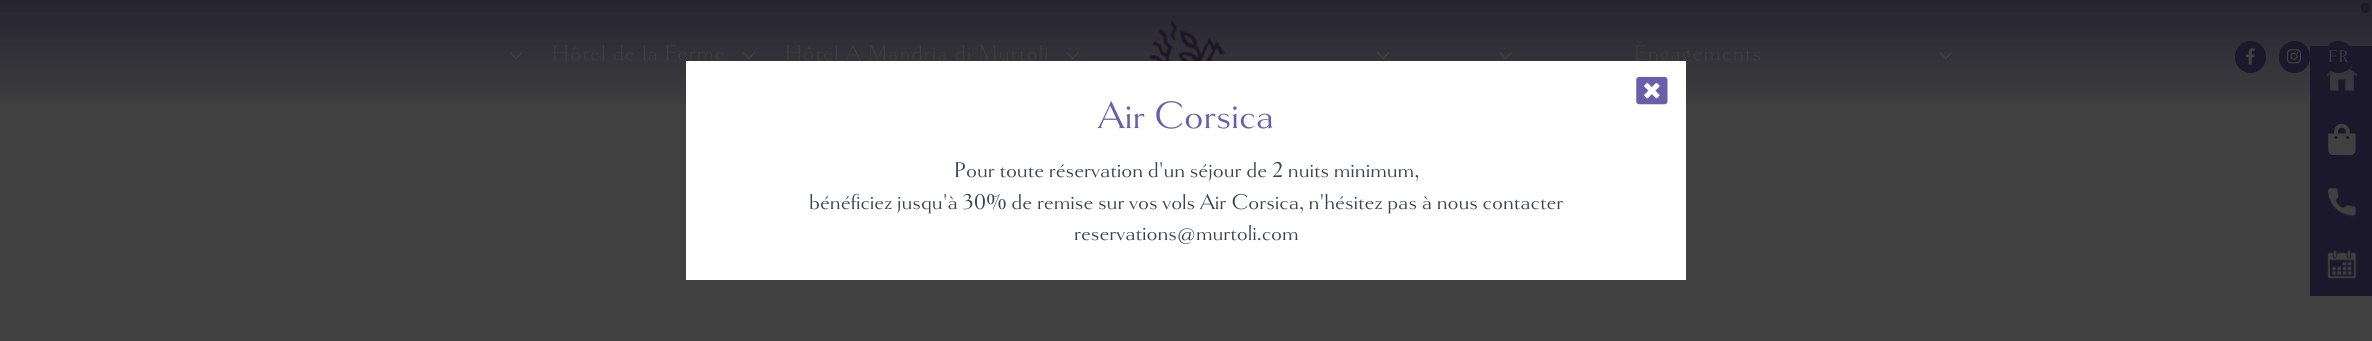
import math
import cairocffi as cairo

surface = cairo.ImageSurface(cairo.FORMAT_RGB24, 2372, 341)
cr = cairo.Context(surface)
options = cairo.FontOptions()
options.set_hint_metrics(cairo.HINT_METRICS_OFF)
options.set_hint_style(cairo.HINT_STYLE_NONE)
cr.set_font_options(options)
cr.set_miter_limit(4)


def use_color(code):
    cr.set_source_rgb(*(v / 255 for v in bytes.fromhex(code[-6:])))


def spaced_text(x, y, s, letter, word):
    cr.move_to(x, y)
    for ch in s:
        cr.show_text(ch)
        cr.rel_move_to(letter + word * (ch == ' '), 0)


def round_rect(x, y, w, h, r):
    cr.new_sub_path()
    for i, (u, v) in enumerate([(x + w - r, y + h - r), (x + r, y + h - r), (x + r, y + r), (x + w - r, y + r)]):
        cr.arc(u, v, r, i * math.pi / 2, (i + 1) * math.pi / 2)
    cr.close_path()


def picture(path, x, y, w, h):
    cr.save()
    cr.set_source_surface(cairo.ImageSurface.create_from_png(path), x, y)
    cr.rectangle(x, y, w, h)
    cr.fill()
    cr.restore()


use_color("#404040")
cr.paint()
use_color("#202020")
round_rect(2361, 3, 9, 10, 4.5)
cr.fill()
use_color("#1a182a")
cr.rectangle(2310, 46, 62, 250)
cr.fill()
picture("img5.png", 2326, 65, 32, 27)
gradient = cairo.LinearGradient(1186, 0, 1186, 113)
gradient.add_color_stop_rgba(0, 0.102, 0.094, 0.165, 0.7)
gradient.add_color_stop_rgba(1, 0.102, 0.094, 0.165, 0)
cr.set_source(gradient)
cr.rectangle(0, 0, 2372, 104)
cr.fill()
use_color("#404040")
cr.new_path()
cr.move_to(521.5, 52)
cr.line_to(522.5, 53)
cr.line_to(516, 59.5)
cr.line_to(515, 58.5)
cr.close_path()
cr.fill()
cr.new_path()
cr.move_to(511, 52)
cr.line_to(517, 58.5)
cr.line_to(516, 59.5)
cr.line_to(510, 53)
cr.close_path()
cr.fill()
cr.select_font_face("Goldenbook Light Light")
cr.set_font_size(22.5)
spaced_text(552, 60, "Hôtel de la Ferme", 1.25, 0)
cr.new_path()
cr.move_to(754, 52)
cr.line_to(755, 53)
cr.line_to(749, 59.5)
cr.line_to(748, 58.5)
cr.close_path()
cr.fill()
cr.new_path()
cr.move_to(743.5, 52)
cr.line_to(750, 58.5)
cr.line_to(749, 59.5)
cr.line_to(742.5, 53)
cr.close_path()
cr.fill()
spaced_text(785, 60, "Hôtel A Mandria di Murtoli", 1.25, 0)
cr.new_path()
cr.move_to(1078, 52)
cr.line_to(1078.5, 53)
cr.line_to(1072.5, 59.5)
cr.line_to(1071.5, 58.5)
cr.close_path()
cr.fill()
cr.new_path()
cr.move_to(1067, 52)
cr.line_to(1073.5, 58.5)
cr.line_to(1072.5, 59.5)
cr.line_to(1066.5, 53)
cr.close_path()
cr.fill()
picture("img1.png", 1148, 21, 78, 40)
cr.new_path()
cr.move_to(1388.5, 52)
cr.line_to(1389.5, 53)
cr.line_to(1383.5, 59.5)
cr.line_to(1382.5, 58.5)
cr.close_path()
cr.fill()
cr.new_path()
cr.move_to(1378, 52)
cr.line_to(1384, 58.5)
cr.line_to(1383.5, 59.5)
cr.line_to(1377, 53)
cr.close_path()
cr.fill()
cr.new_path()
cr.move_to(1511, 52)
cr.line_to(1512, 53)
cr.line_to(1505.5, 59.5)
cr.line_to(1504.5, 58.5)
cr.close_path()
cr.fill()
cr.new_path()
cr.move_to(1500.5, 52)
cr.line_to(1506.5, 58.5)
cr.line_to(1505.5, 59.5)
cr.line_to(1499.5, 53)
cr.close_path()
cr.fill()
spaced_text(1634, 60, "Engagements", 1.25, 0)
cr.new_path()
cr.move_to(1951, 52)
cr.line_to(1952, 53)
cr.line_to(1945.5, 59.5)
cr.line_to(1945, 58.5)
cr.close_path()
cr.fill()
cr.new_path()
cr.move_to(1940.5, 52)
cr.line_to(1946.5, 58.5)
cr.line_to(1945.5, 59.5)
cr.line_to(1939.5, 53)
cr.close_path()
cr.fill()
use_color("#1a182a")
round_rect(2235.5, 41.5, 30, 31, 15)
cr.fill_preserve()
cr.set_line_width(1)
cr.stroke()
picture("img2.png", 2246, 48, 9, 17)
round_rect(2279.5, 41.5, 30, 31, 15)
cr.fill_preserve()
cr.stroke()
picture("img3.png", 2286, 49, 15, 15)
round_rect(2323, 41, 31, 32, 15.5)
cr.fill()
cr.select_font_face("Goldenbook")
cr.set_font_size(18)
use_color("#404040")
spaced_text(2328, 62, "FR", 1.25, 0)
use_color("#ffffff")
cr.rectangle(686, 61, 1000, 219)
cr.fill()
picture("img4.png", 1636, 76, 32, 29)
cr.set_font_size(40)
use_color("#685ea9")
cr.move_to(1098, 128)
cr.show_text("Air Corsica")
cr.set_font_size(22.5)
use_color("#374151")
cr.move_to(954, 177)
cr.show_text("Pour toute réservation d'un séjour de 2 nuits minimum,")
cr.move_to(809, 209)
cr.show_text("bénéficiez jusqu'à 30% de remise sur vos vols Air Corsica, n'hésitez pas à nous contacter")
cr.move_to(1074, 240)
cr.show_text("reservations@murtoli.com")
picture("img6.png", 2328, 123, 28, 32)
picture("img7.png", 2328, 187, 28, 30)
picture("img8.png", 2327, 250, 30, 29)
surface.write_to_png("result.png")
